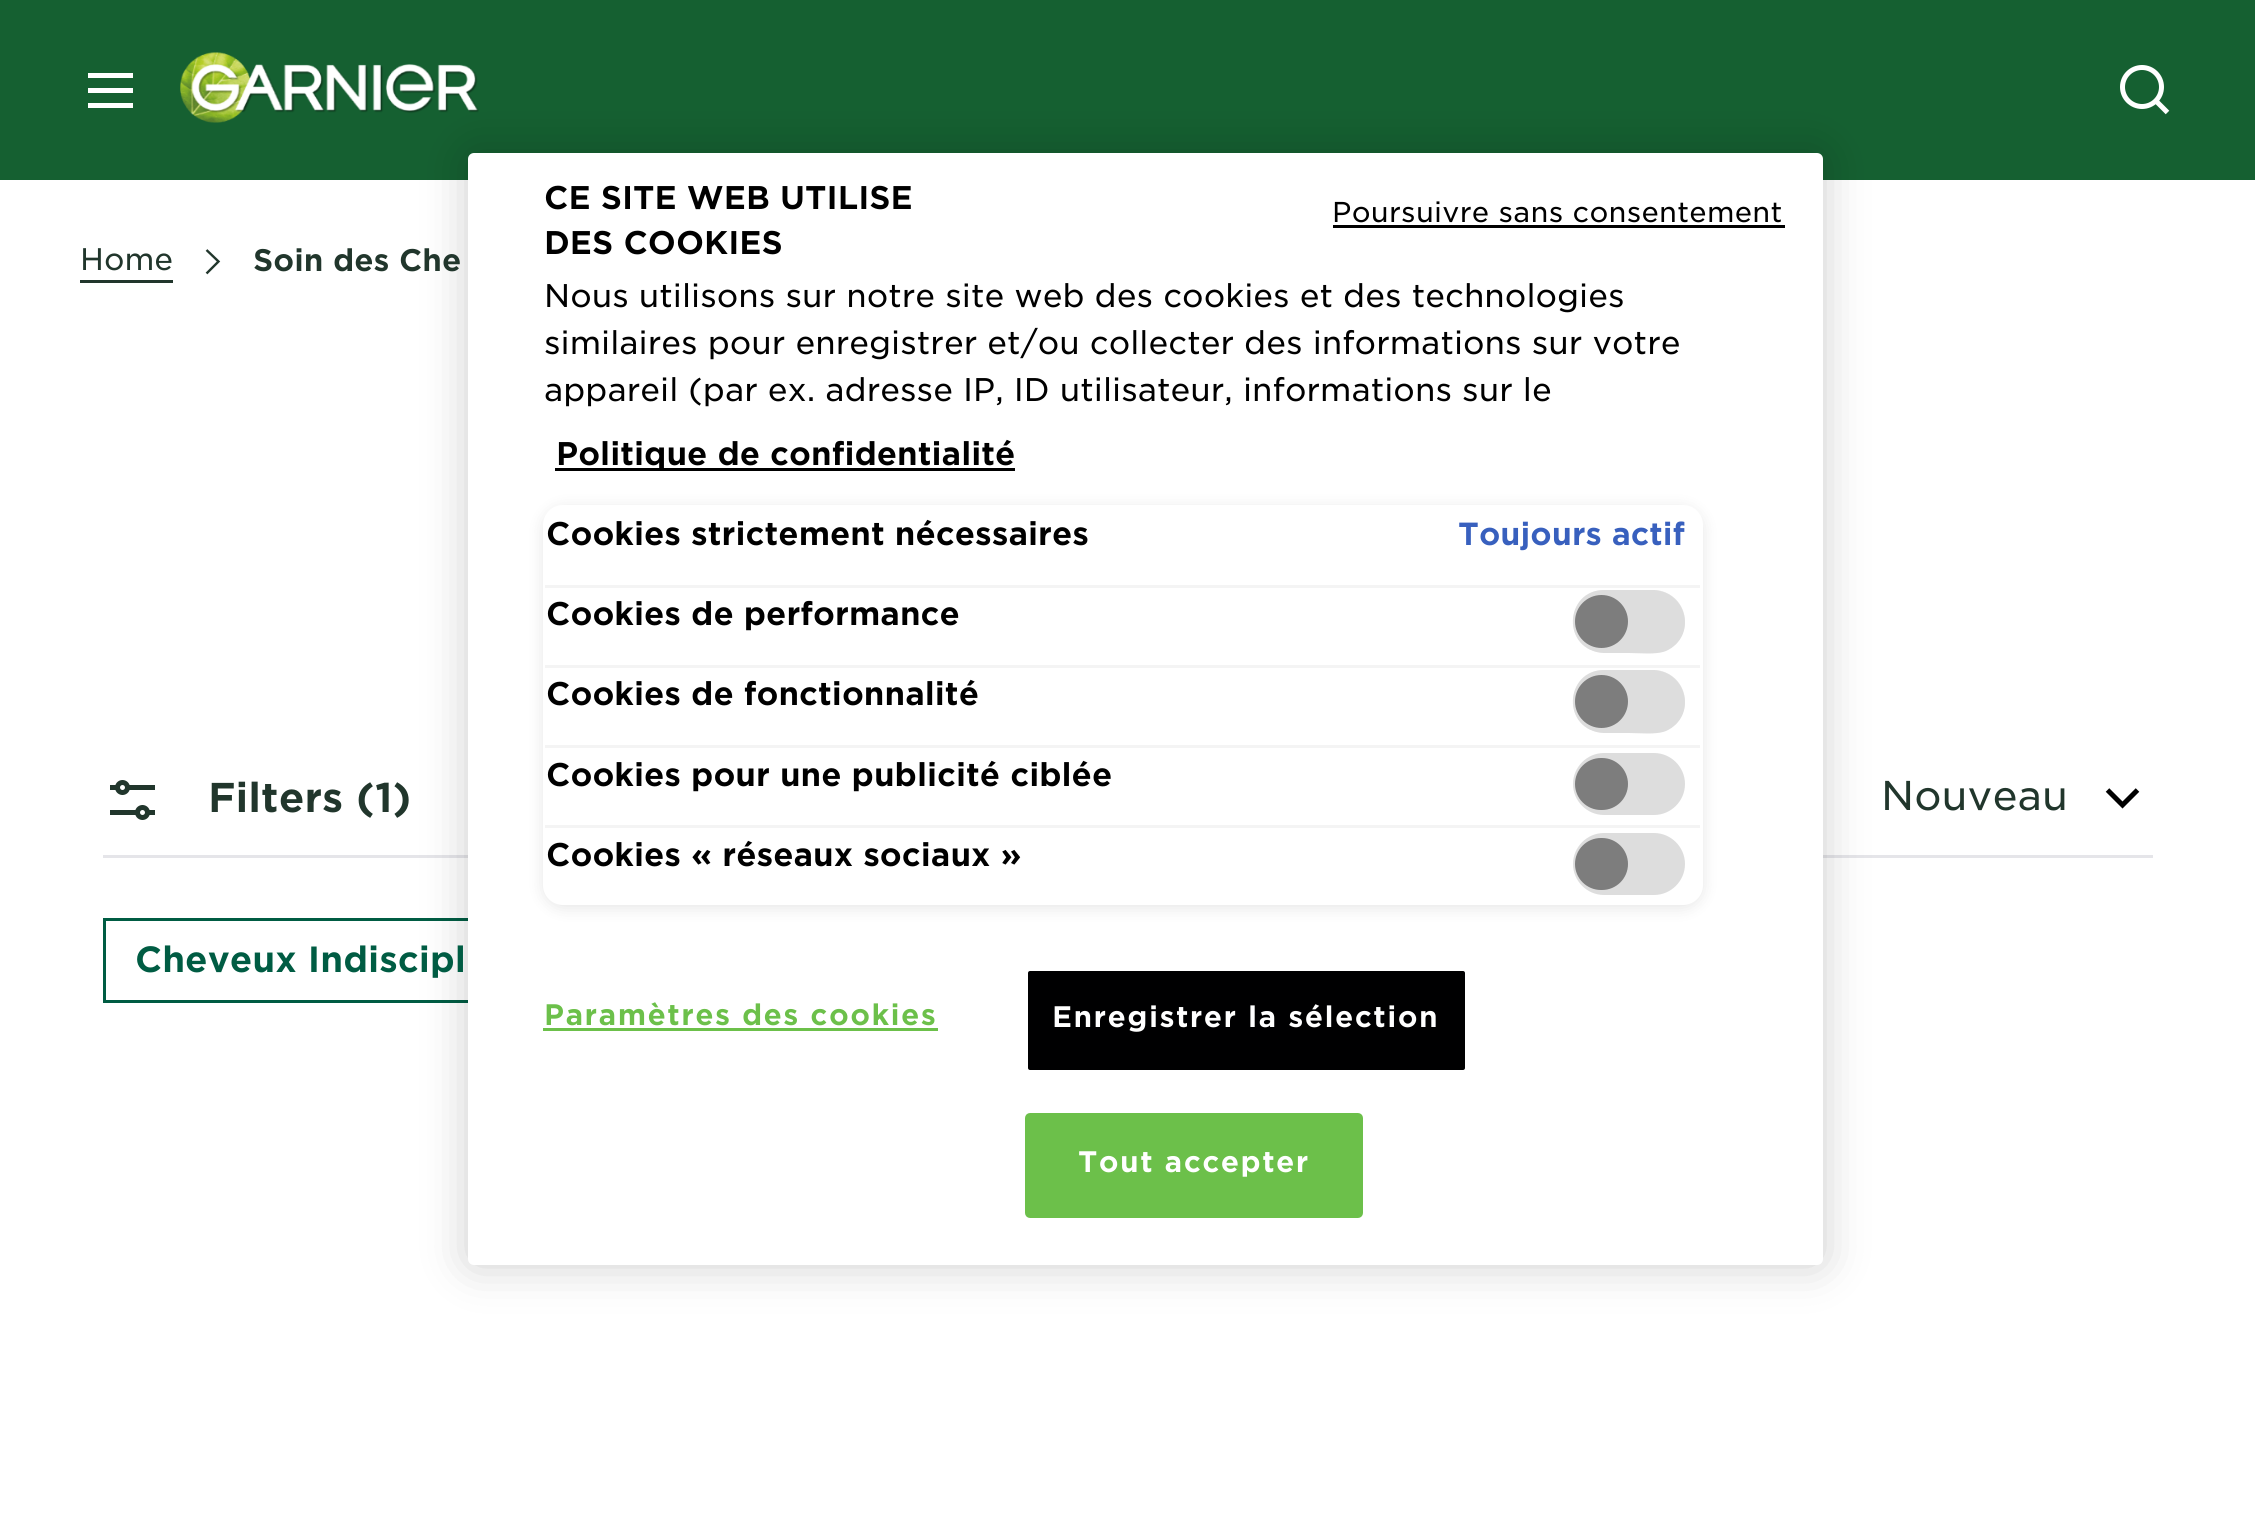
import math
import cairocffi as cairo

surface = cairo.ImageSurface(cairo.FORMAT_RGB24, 2255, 1519)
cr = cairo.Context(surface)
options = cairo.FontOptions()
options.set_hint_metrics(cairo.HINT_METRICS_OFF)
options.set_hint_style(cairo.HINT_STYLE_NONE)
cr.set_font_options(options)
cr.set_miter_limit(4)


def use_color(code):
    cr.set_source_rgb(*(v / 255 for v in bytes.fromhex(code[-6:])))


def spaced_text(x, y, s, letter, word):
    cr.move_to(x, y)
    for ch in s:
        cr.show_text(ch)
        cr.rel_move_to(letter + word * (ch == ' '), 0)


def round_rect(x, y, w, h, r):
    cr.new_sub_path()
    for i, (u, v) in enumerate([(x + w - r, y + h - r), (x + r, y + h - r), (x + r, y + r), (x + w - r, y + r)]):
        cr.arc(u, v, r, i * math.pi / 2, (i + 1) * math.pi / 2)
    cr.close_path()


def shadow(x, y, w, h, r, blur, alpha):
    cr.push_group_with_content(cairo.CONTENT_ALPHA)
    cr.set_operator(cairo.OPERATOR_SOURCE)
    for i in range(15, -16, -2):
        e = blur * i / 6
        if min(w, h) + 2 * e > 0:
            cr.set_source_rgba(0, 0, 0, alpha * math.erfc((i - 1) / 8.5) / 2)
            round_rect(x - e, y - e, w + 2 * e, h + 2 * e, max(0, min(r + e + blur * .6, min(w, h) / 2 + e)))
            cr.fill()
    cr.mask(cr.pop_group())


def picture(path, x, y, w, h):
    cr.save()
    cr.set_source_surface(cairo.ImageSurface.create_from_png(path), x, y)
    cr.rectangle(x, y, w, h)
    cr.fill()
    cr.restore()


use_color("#ffffff")
cr.paint()
use_color("#156031")
cr.rectangle(0, 0, 2255, 180)
cr.fill()
picture("img1.png", 180, 52, 299, 71)
use_color("#e5e5e9")
cr.rectangle(103, 855, 2050, 3)
cr.fill()
cr.rectangle(104.5, 919.5, 517, 82)
use_color("#005c43")
cr.set_line_width(3)
cr.stroke()
use_color("#000000")
shadow(468, 153, 1355, 1112, 6, 22.5, 0.2)
use_color("#ffffff")
round_rect(468, 153, 1355, 1112, 6)
cr.fill()
cr.select_font_face("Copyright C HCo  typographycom")
cr.set_font_size(31.5)
use_color("#000000")
cr.move_to(544, 209)
cr.show_text("CE SITE WEB UTILISE")
cr.move_to(544, 254)
cr.show_text("DES COOKIES")
cr.select_font_face("Copyright C HCo  typographycom Light")
cr.move_to(544, 307)
cr.show_text("Nous utilisons sur notre site web des cookies et des technologies")
cr.move_to(544, 354)
cr.show_text("similaires pour enregistrer et/ou collecter des informations sur votre")
cr.move_to(544, 401)
cr.show_text("appareil (par ex. adresse IP, ID utilisateur, informations sur le")
cr.rectangle(555, 468, 460, 3)
cr.fill()
cr.select_font_face("Copyright C HCo  typographycom")
cr.move_to(556, 465)
cr.show_text("Politique de confidentialité")
use_color("#000000")
shadow(543, 508, 1160, 400, 20, 7.5, 0.1)
use_color("#ffffff")
round_rect(543, 505, 1160, 400, 20)
cr.fill()
use_color("#f4f4f4")
cr.rectangle(545, 585, 1155, 3)
cr.fill()
use_color("#000000")
cr.move_to(546, 545)
cr.show_text("Cookies strictement nécessaires")
cr.set_font_size(30.75)
use_color("#3860be")
cr.move_to(1458, 545)
cr.show_text("Toujours actif")
use_color("#f4f4f4")
cr.rectangle(545, 665, 1155, 3)
cr.fill()
cr.set_font_size(31.5)
use_color("#000000")
cr.move_to(546, 625)
cr.show_text("Cookies de performance")
use_color("#f2f1f1")
round_rect(1573, 590, 112, 63, 31.5)
cr.fill()
use_color("#dddddd")
cr.new_path()
cr.move_to(1604, 590)
cr.line_to(1654, 590)
cr.curve_to(1688, 592, 1697, 637, 1666, 651)
cr.curve_to(1656, 655, 1640, 653, 1629, 653)
cr.line_to(1604, 653)
cr.curve_to(1561, 651, 1564, 590, 1604, 590)
cr.close_path()
cr.fill()
use_color("#7d7d7d")
cr.arc(1601.5, 621.5, 26.5, 0, 2 * math.pi)
cr.fill()
use_color("#f4f4f4")
cr.rectangle(545, 745, 1155, 3)
cr.fill()
use_color("#000000")
cr.move_to(546, 705)
cr.show_text("Cookies de fonctionnalité")
use_color("#f2f1f1")
round_rect(1573, 670, 112, 63, 31.5)
cr.fill()
use_color("#dddddd")
cr.new_path()
cr.move_to(1604, 670)
cr.line_to(1654, 670)
cr.curve_to(1688, 672, 1697, 717, 1666, 731)
cr.curve_to(1656, 735, 1640, 733, 1629, 733)
cr.line_to(1604, 733)
cr.curve_to(1561, 731, 1564, 670, 1604, 670)
cr.close_path()
cr.fill()
use_color("#7d7d7d")
cr.arc(1601.5, 701.5, 26.5, 0, 2 * math.pi)
cr.fill()
use_color("#f4f4f4")
cr.rectangle(545, 825, 1155, 3)
cr.fill()
use_color("#000000")
cr.move_to(546, 786)
cr.show_text("Cookies pour une publicité ciblée")
use_color("#dddddd")
cr.new_path()
cr.move_to(1604, 753)
cr.line_to(1654, 753)
cr.curve_to(1671, 753, 1685, 767, 1685, 784)
cr.curve_to(1685, 801, 1671, 815, 1654, 815)
cr.line_to(1604, 815)
cr.curve_to(1587, 815, 1573, 801, 1573, 784)
cr.curve_to(1573, 767, 1587, 753, 1604, 753)
cr.close_path()
cr.fill()
use_color("#7d7d7d")
round_rect(1575, 758, 53, 52, 26)
cr.fill()
use_color("#000000")
cr.move_to(546, 866)
cr.show_text("Cookies « réseaux sociaux »")
use_color("#dddddd")
cr.new_path()
cr.move_to(1604, 833)
cr.line_to(1654, 833)
cr.curve_to(1671, 833, 1685, 847, 1685, 864)
cr.curve_to(1685, 881, 1671, 895, 1654, 895)
cr.line_to(1604, 895)
cr.curve_to(1587, 895, 1573, 881, 1573, 864)
cr.curve_to(1573, 847, 1587, 833, 1604, 833)
cr.close_path()
cr.fill()
use_color("#7d7d7d")
round_rect(1575, 838, 53, 52, 26)
cr.fill()
cr.set_font_size(28.5)
use_color("#6cc04a")
spaced_text(544, 1025, "Paramètres des cookies", 1.4, 0)
cr.rectangle(543, 1028, 395, 3)
cr.fill()
use_color("#000001")
round_rect(1026.5, 969.5, 440, 102, 3.5)
cr.fill_preserve()
use_color("#ffffff")
cr.stroke()
spaced_text(1052, 1027, "Enregistrer la sélection", 1.4, 0)
use_color("#6cc04a")
round_rect(1026.5, 1114.5, 335, 102, 3.5)
cr.fill_preserve()
cr.stroke()
use_color("#ffffff")
spaced_text(1078, 1172, "Tout accepter", 1.4, 0)
cr.select_font_face("Copyright C HCo  typographycom Light")
cr.set_font_size(27.6)
use_color("#000000")
spaced_text(1332, 222, "Poursuivre sans consentement", 0.25, 0)
cr.rectangle(1333, 225, 452, 3)
cr.fill()
use_color("#ffffff")
cr.rectangle(88, 73, 45, 5)
cr.fill()
cr.rectangle(88, 88, 45, 5)
cr.fill()
cr.rectangle(88, 103, 45, 5)
cr.fill()
cr.arc(2142, 87, 19.5, 0, 2 * math.pi)
cr.set_line_width(5)
cr.stroke()
cr.new_path()
cr.move_to(2156, 101)
cr.line_to(2167.5, 112.5)
cr.set_line_join(cairo.LINE_JOIN_ROUND)
cr.stroke()
use_color("#21362c")
cr.rectangle(80, 280, 93, 3)
cr.fill()
cr.set_font_size(30)
cr.move_to(80, 270)
cr.show_text("Home")
cr.new_path()
cr.move_to(206.5, 273.5)
cr.line_to(218.5, 261.5)
cr.line_to(206.5, 250)
cr.set_line_width(2.4)
cr.set_line_join(cairo.LINE_JOIN_MITER)
cr.stroke()
cr.select_font_face("Copyright C HCo  typographycom")
cr.move_to(253, 271)
cr.show_text("Soin des Che")
picture("img2.png", 110, 780, 45, 40)
cr.set_font_size(40)
cr.move_to(208, 812)
cr.show_text("Filters (1)")
cr.select_font_face("Copyright C HCo  typographycom Light")
cr.move_to(1881, 810)
cr.show_text("Nouveau")
cr.new_path()
cr.move_to(2107.5, 790)
cr.line_to(2122.5, 805)
cr.line_to(2137.5, 790)
use_color("#000000")
cr.set_line_width(5)
cr.stroke()
cr.select_font_face("Copyright C HCo  typographycom")
cr.set_font_size(35)
use_color("#005c43")
cr.move_to(135, 972)
cr.show_text("Cheveux Indiscipl")
surface.write_to_png("result.png")
